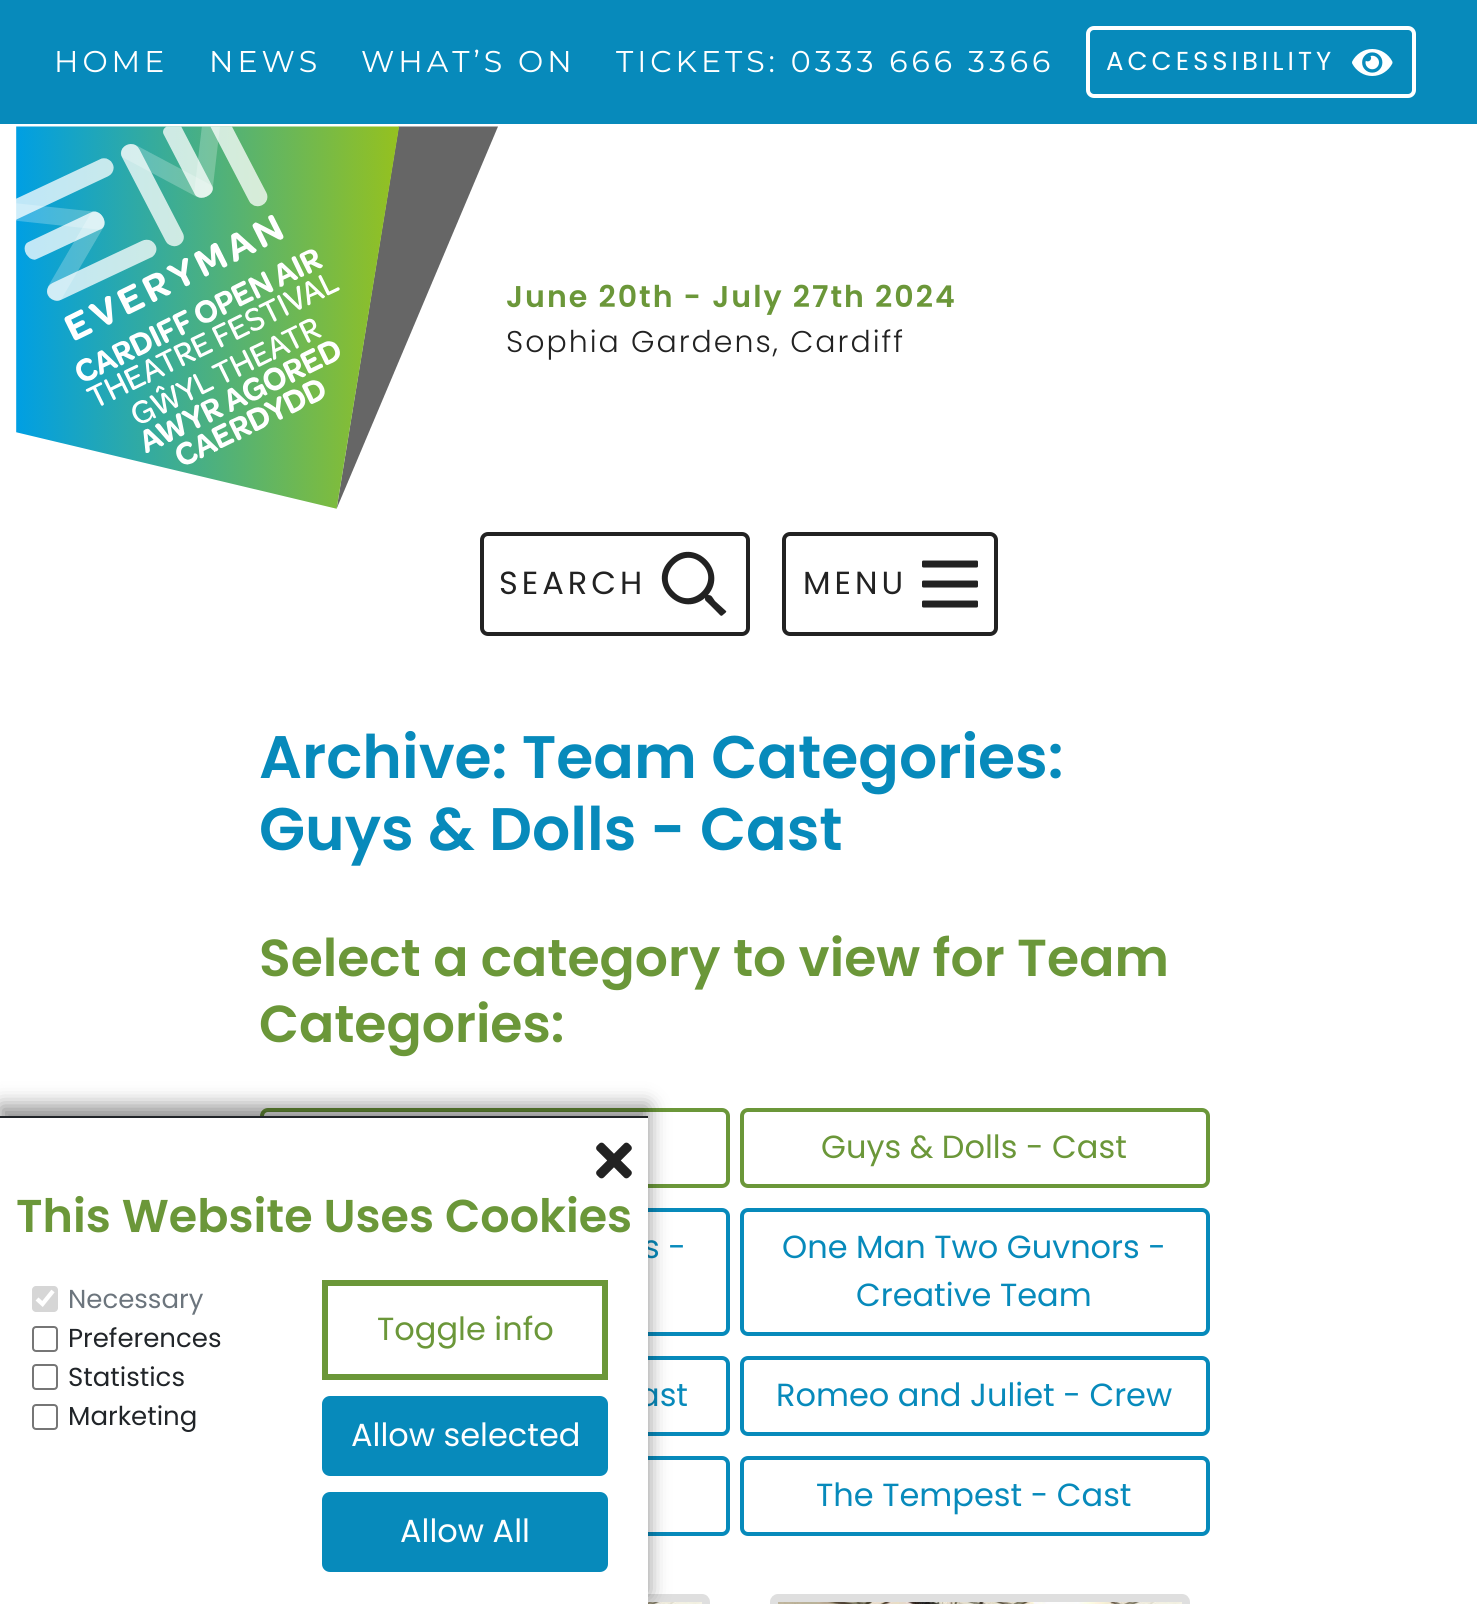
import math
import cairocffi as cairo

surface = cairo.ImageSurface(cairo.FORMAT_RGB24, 1477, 1604)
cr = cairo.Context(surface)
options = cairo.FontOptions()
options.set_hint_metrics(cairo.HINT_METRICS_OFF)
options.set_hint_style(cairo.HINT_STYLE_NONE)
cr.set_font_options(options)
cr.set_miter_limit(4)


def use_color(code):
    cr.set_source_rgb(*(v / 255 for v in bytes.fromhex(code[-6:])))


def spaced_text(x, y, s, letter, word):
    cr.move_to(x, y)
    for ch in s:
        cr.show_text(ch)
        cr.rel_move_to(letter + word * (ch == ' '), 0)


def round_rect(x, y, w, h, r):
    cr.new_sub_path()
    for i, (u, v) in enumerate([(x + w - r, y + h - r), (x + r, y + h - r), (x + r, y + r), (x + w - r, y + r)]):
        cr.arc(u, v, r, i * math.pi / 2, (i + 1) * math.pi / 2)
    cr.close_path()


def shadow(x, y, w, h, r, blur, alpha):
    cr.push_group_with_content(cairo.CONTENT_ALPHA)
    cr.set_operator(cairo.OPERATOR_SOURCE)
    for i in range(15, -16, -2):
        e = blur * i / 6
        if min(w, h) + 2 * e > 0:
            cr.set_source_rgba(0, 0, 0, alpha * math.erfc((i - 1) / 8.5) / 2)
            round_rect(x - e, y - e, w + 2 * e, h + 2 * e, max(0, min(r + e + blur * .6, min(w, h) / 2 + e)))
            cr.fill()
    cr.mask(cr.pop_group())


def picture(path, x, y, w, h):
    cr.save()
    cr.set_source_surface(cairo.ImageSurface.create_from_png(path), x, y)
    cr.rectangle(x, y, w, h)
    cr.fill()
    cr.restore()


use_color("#ffffff")
cr.paint()
use_color("#078abb")
cr.rectangle(0, 0, 1477, 124)
cr.fill()
cr.select_font_face("Montserrat")
cr.set_font_size(30)
use_color("#ffffff")
spaced_text(54, 72, "HOME", 4, 0)
spaced_text(209, 72, "NEWS", 4, 0)
spaced_text(361, 72, "WHAT’S ON", 4, 0)
spaced_text(616, 72, "TICKETS: 0333 666 3366", 4, 0)
round_rect(1088, 28, 326, 68, 6)
cr.set_line_width(4)
cr.stroke()
cr.select_font_face("Poppins")
cr.set_font_size(26)
spaced_text(1106, 70, "ACCESSIBILITY", 4, 0)
picture("img1.png", 1352, 49, 41, 27)
picture("img2.png", 16, 126, 482, 383)
cr.select_font_face("Poppins SemiBold")
cr.set_font_size(30)
use_color("#6b9739")
spaced_text(506, 307, "June 20th - July 27th 2024", 2, 0)
cr.select_font_face("Poppins Light")
use_color("#222222")
spaced_text(506, 352, "Sophia Gardens, Cardiff", 2, 0)
round_rect(482, 534, 266, 100, 6)
cr.stroke()
cr.select_font_face("Poppins")
cr.set_font_size(32)
spaced_text(499, 594, "SEARCH", 4, 0)
cr.new_path()
cr.move_to(726, 611)
cr.curve_to(727, 612, 725, 613, 724, 614)
cr.curve_to(721, 617, 721, 616, 718, 613)
cr.line_to(708, 603)
cr.curve_to(705, 600, 705, 601, 705, 598)
cr.curve_to(680, 619, 646, 583, 670, 560)
cr.curve_to(693, 536, 729, 570, 708, 595)
cr.curve_to(712, 595, 712, 597, 715, 601)
cr.close_path()
cr.move_to(674, 592)
cr.curve_to(692, 611, 721, 582, 702, 564)
cr.curve_to(684, 545, 655, 574, 674, 592)
cr.close_path()
cr.fill()
round_rect(784, 534, 212, 100, 6)
cr.stroke()
spaced_text(803, 594, "MENU", 4, 0)
picture("img3.png", 922, 560, 56, 48)
cr.select_font_face("Poppins SemiBold")
cr.set_font_size(60)
use_color("#078abb")
cr.move_to(259, 778)
cr.show_text("Archive: Team Categories:")
cr.move_to(259, 850)
cr.show_text("Guys & Dolls - Cast")
cr.set_font_size(52)
use_color("#6b9739")
cr.move_to(259, 976)
cr.show_text("Select a category to view for Team")
cr.move_to(259, 1042)
cr.show_text("Categories:")
round_rect(262, 1110, 466, 76, 6)
cr.stroke()
round_rect(742, 1110, 466, 76, 6)
cr.stroke()
cr.select_font_face("Poppins")
cr.set_font_size(32)
cr.move_to(821, 1158)
cr.show_text("Guys & Dolls - Cast")
round_rect(262, 1210, 466, 124, 6)
use_color("#078abb")
cr.stroke()
cr.move_to(643, 1258)
cr.show_text("s -")
round_rect(742, 1210, 466, 124, 6)
cr.stroke()
cr.move_to(782, 1258)
cr.show_text("One Man Two Guvnors -")
cr.move_to(856, 1306)
cr.show_text("Creative Team")
round_rect(262, 1358, 466, 76, 6)
cr.stroke()
cr.move_to(638, 1406)
cr.show_text("ast")
round_rect(742, 1358, 466, 76, 6)
cr.stroke()
cr.move_to(776, 1406)
cr.show_text("Romeo and Juliet - Crew")
round_rect(262, 1458, 466, 76, 6)
cr.stroke()
round_rect(742, 1458, 466, 76, 6)
cr.stroke()
cr.move_to(816, 1506)
cr.show_text("The Tempest - Cast")
round_rect(294, 1598, 412, 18, 4)
use_color("#dfdfdf")
cr.set_line_width(8)
cr.stroke()
picture("img4.png", 648, 1602, 54, 2)
round_rect(774, 1598, 412, 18, 4)
cr.stroke()
picture("img5.png", 778, 1602, 404, 2)
use_color("#000000")
shadow(0, 1106, 648, 488, 0, 10, 0.45)
use_color("#ffffff")
cr.rectangle(0, 1118, 648, 486)
cr.fill()
use_color("#212529")
cr.rectangle(0, 1116, 648, 2)
cr.fill()
picture("img6.png", 596, 1142, 36, 37)
cr.select_font_face("Poppins SemiBold")
cr.set_font_size(46)
use_color("#6b9739")
cr.move_to(16, 1232)
cr.show_text("This Website Uses Cookies")
use_color("#d6d6d6")
round_rect(32, 1286, 26, 26, 4)
cr.fill()
cr.new_path()
cr.move_to(37, 1299)
cr.line_to(42.5, 1304)
cr.line_to(53, 1291)
use_color("#ffffff")
cr.set_line_width(4.2)
cr.stroke()
cr.select_font_face("Poppins")
cr.set_font_size(26)
use_color("#6c757d")
cr.move_to(68, 1308)
cr.show_text("Necessary")
round_rect(33, 1327, 24, 24, 3)
use_color("#767676")
cr.set_line_width(2)
cr.stroke()
use_color("#212529")
cr.move_to(68, 1347)
cr.show_text("Preferences")
round_rect(33, 1365, 24, 24, 3)
use_color("#767676")
cr.stroke()
use_color("#212529")
cr.move_to(68, 1386)
cr.show_text("Statistics")
round_rect(33, 1405, 24, 24, 3)
use_color("#767676")
cr.stroke()
use_color("#212529")
cr.move_to(68, 1425)
cr.show_text("Marketing")
cr.rectangle(325, 1283, 280, 94)
use_color("#6b9739")
cr.set_line_width(6)
cr.stroke()
cr.set_font_size(32)
cr.move_to(377, 1340)
cr.show_text("Toggle info")
use_color("#078abb")
round_rect(324, 1398, 282, 76, 6)
cr.fill_preserve()
cr.set_line_width(4)
cr.stroke()
use_color("#ffffff")
cr.move_to(351, 1446)
cr.show_text("Allow selected")
use_color("#078abb")
round_rect(324, 1494, 282, 76, 6)
cr.fill_preserve()
cr.stroke()
use_color("#ffffff")
cr.move_to(400, 1542)
cr.show_text("Allow All")
surface.write_to_png("result.png")
